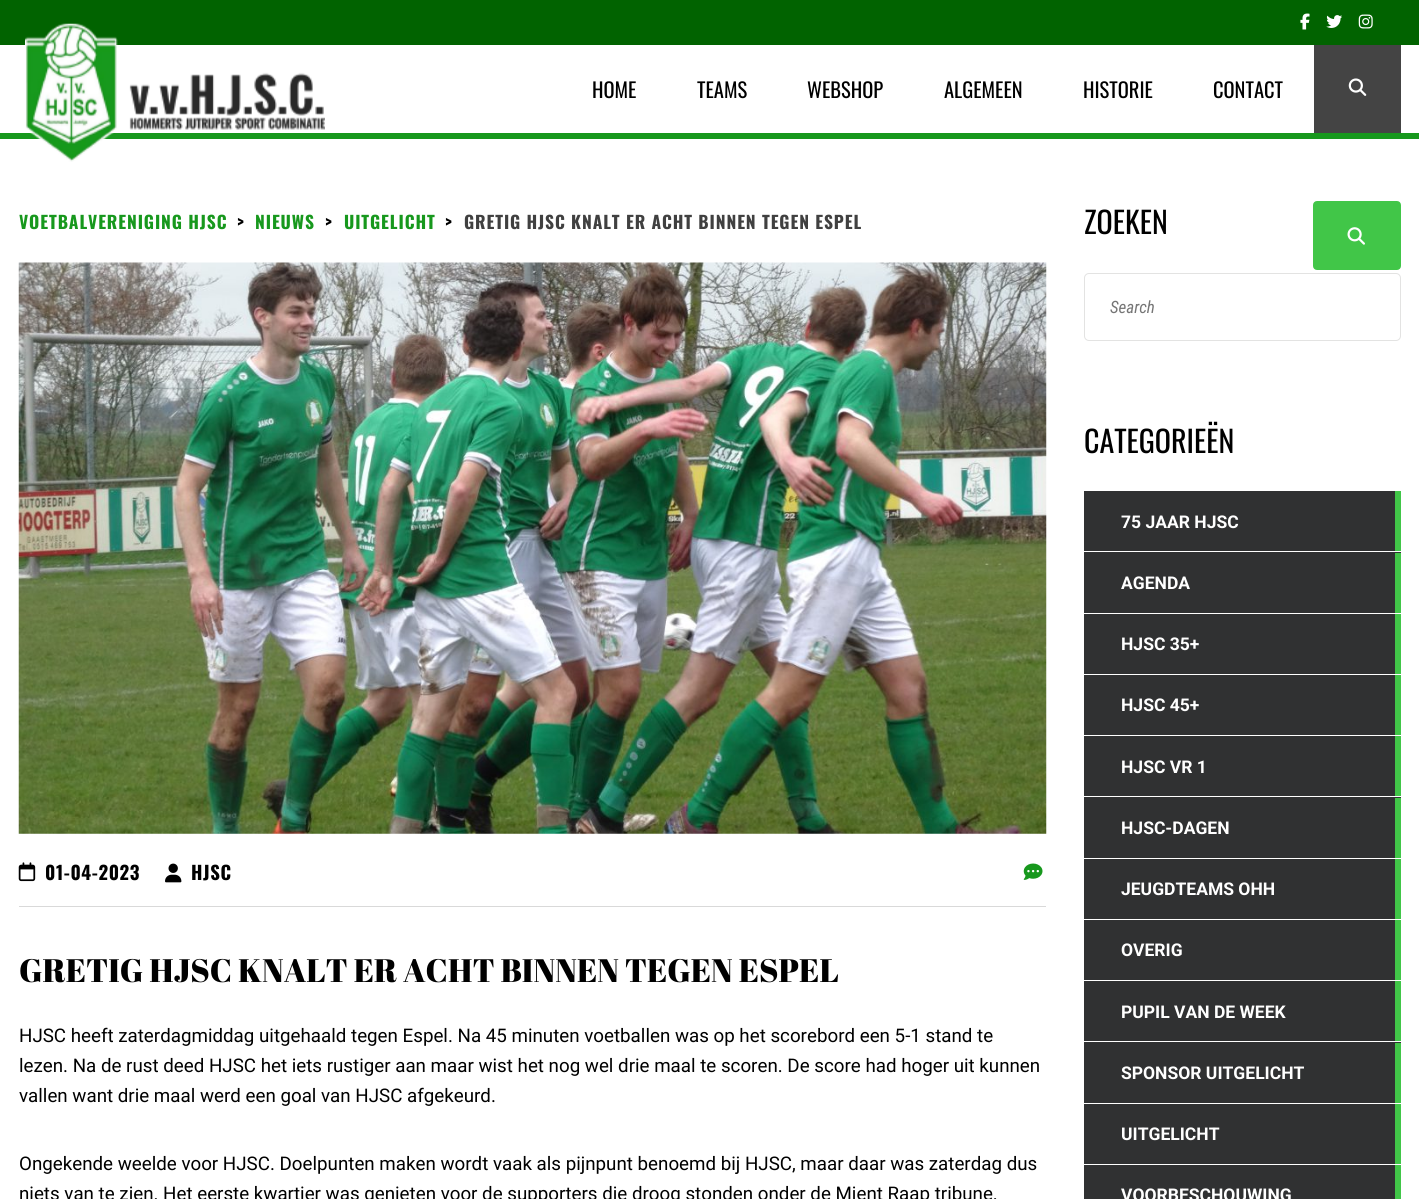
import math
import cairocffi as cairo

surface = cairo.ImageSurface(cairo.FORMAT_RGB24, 1419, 1199)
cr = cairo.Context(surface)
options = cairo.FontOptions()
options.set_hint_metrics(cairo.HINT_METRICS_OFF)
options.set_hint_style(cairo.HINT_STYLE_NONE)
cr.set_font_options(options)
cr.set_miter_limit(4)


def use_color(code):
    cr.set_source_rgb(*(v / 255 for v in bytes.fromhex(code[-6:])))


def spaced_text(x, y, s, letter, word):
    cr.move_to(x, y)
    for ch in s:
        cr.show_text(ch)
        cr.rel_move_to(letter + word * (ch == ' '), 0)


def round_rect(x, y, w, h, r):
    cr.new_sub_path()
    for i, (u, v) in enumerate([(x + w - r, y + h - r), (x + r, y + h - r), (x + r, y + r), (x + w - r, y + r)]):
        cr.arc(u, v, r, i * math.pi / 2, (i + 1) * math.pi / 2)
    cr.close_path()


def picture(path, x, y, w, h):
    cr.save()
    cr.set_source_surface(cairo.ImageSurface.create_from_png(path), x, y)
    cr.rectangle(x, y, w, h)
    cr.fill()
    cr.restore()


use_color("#ffffff")
cr.paint()
use_color("#016300")
cr.rectangle(0, 0, 1419, 45)
cr.fill()
picture("img1.png", 1300, 13, 10, 17)
picture("img2.png", 1326, 15, 16, 13)
picture("img3.png", 1358, 14, 15, 15)
use_color("#17981d")
cr.rectangle(0, 133, 1419, 6)
cr.fill()
picture("img4.png", 25, 23, 300, 139)
cr.select_font_face("Oswald")
cr.set_font_size(20.5)
use_color("#000000")
cr.move_to(592, 98)
cr.show_text("HOME")
cr.move_to(697, 98)
cr.show_text("TEAMS")
cr.move_to(807, 98)
cr.show_text("WEBSHOP")
cr.move_to(944, 98)
cr.show_text("ALGEMEEN")
cr.move_to(1083, 98)
cr.show_text("HISTORIE")
cr.move_to(1213, 98)
cr.show_text("CONTACT")
use_color("#444444")
cr.rectangle(1314, 45, 87, 88)
cr.fill()
picture("img5.png", 1348, 78, 19, 18)
cr.select_font_face("Oswald", cairo.FONT_SLANT_NORMAL, cairo.FONT_WEIGHT_BOLD)
cr.set_font_size(17.5)
use_color("#17981d")
spaced_text(19, 229, "VOETBALVERENIGING HJSC", 0.9, 0)
use_color("#000000")
spaced_text(237, 229, ">", 0.9, 0)
use_color("#17981d")
spaced_text(255, 229, "NIEUWS", 0.9, 0)
use_color("#000000")
spaced_text(325, 229, ">", 0.9, 0)
use_color("#17981d")
spaced_text(344, 229, "UITGELICHT", 0.9, 0)
use_color("#000000")
spaced_text(445, 229, ">", 0.9, 0)
use_color("#404040")
spaced_text(464, 229, "GRETIG HJSC KNALT ER ACHT BINNEN TEGEN ESPEL", 0.9, 0)
picture("img6.png", 18, 262, 1029, 572)
use_color("#d9d9d9")
cr.rectangle(19, 906, 1027, 1)
cr.fill()
picture("img7.png", 18, 862, 18, 20)
cr.set_font_size(18.75)
use_color("#000000")
spaced_text(45, 880, "01-04-2023", 0.6, 0)
picture("img8.png", 165, 863, 17, 20)
spaced_text(191, 880, "HJSC", 0.6, 0)
picture("img9.png", 1023, 863, 20, 17)
cr.select_font_face("Abril Fatface")
cr.set_font_size(32.5)
cr.move_to(19, 982)
cr.show_text("GRETIG HJSC KNALT ER ACHT BINNEN TEGEN ESPEL")
cr.select_font_face("Roboto")
cr.set_font_size(18.75)
cr.move_to(19, 1042)
cr.show_text("HJSC heeft zaterdagmiddag uitgehaald tegen Espel. Na 45 minuten voetballen was op het scorebord een 5-1 stand te")
cr.move_to(19, 1072)
cr.show_text("lezen. Na de rust deed HJSC het iets rustiger aan maar wist het nog wel drie maal te scoren. De score had hoger uit kunnen")
cr.move_to(19, 1102)
cr.show_text("vallen want drie maal werd een goal van HJSC afgekeurd.")
cr.move_to(19, 1170)
cr.show_text("Ongekende weelde voor HJSC. Doelpunten maken wordt vaak als pijnpunt benoemd bij HJSC, maar daar was zaterdag dus")
cr.move_to(19, 1200)
cr.show_text("niets van te zien. Het eerste kwartier was genieten voor de supporters die droog stonden onder de Mient Raap tribune.")
cr.select_font_face("Oswald")
cr.set_font_size(30)
cr.move_to(1084, 234)
cr.show_text("ZOEKEN")
round_rect(1314.5, 202.5, 85, 66, 2.5)
use_color("#41c648")
cr.set_line_width(3)
cr.stroke()
cr.rectangle(1316, 204, 82, 63)
cr.fill()
picture("img10.png", 1347, 227, 18, 18)
round_rect(1084.5, 273.5, 316, 67, 4.5)
use_color("#e3e3e2")
cr.set_line_width(1)
cr.stroke()
cr.select_font_face("Roboto Condensed", cairo.FONT_SLANT_ITALIC)
cr.set_font_size(17)
use_color("#757575")
cr.move_to(1110, 313)
cr.show_text("Search")
cr.select_font_face("Oswald")
cr.set_font_size(30)
use_color("#000000")
cr.move_to(1084, 453)
cr.show_text("CATEGORIEËN")
use_color("#303132")
cr.rectangle(1084, 491, 317, 62)
cr.fill()
use_color("#ffffff")
cr.rectangle(1084, 551, 317, 1)
cr.fill()
cr.select_font_face("Roboto", cairo.FONT_SLANT_NORMAL, cairo.FONT_WEIGHT_BOLD)
cr.set_font_size(17.5)
cr.move_to(1121, 528)
cr.show_text("75 JAAR HJSC")
use_color("#41c648")
cr.rectangle(1395, 491, 6, 60)
cr.fill()
use_color("#303132")
cr.rectangle(1084, 553, 311, 60)
cr.fill()
use_color("#ffffff")
cr.move_to(1121, 589)
cr.show_text("AGENDA")
use_color("#41c648")
cr.rectangle(1395, 553, 6, 60)
cr.fill()
use_color("#303132")
cr.rectangle(1084, 614, 311, 60)
cr.fill()
use_color("#ffffff")
cr.move_to(1121, 650)
cr.show_text("HJSC 35+")
use_color("#41c648")
cr.rectangle(1395, 614, 6, 60)
cr.fill()
use_color("#303132")
cr.rectangle(1084, 675, 311, 60)
cr.fill()
use_color("#ffffff")
cr.move_to(1121, 711)
cr.show_text("HJSC 45+")
use_color("#41c648")
cr.rectangle(1395, 675, 6, 60)
cr.fill()
use_color("#303132")
cr.rectangle(1084, 736, 317, 62)
cr.fill()
use_color("#ffffff")
cr.rectangle(1084, 796, 317, 1)
cr.fill()
cr.move_to(1121, 773)
cr.show_text("HJSC VR 1")
use_color("#41c648")
cr.rectangle(1395, 736, 6, 60)
cr.fill()
use_color("#303132")
cr.rectangle(1084, 798, 311, 60)
cr.fill()
use_color("#ffffff")
cr.move_to(1121, 834)
cr.show_text("HJSC-DAGEN")
use_color("#41c648")
cr.rectangle(1395, 798, 6, 60)
cr.fill()
use_color("#303132")
cr.rectangle(1084, 859, 311, 60)
cr.fill()
use_color("#ffffff")
cr.move_to(1121, 895)
cr.show_text("JEUGDTEAMS OHH")
use_color("#41c648")
cr.rectangle(1395, 859, 6, 60)
cr.fill()
use_color("#303132")
cr.rectangle(1084, 920, 311, 60)
cr.fill()
use_color("#ffffff")
cr.move_to(1121, 956)
cr.show_text("OVERIG")
use_color("#41c648")
cr.rectangle(1395, 920, 6, 60)
cr.fill()
use_color("#303132")
cr.rectangle(1084, 981, 317, 62)
cr.fill()
use_color("#ffffff")
cr.rectangle(1084, 1041, 317, 1)
cr.fill()
cr.move_to(1121, 1018)
cr.show_text("PUPIL VAN DE WEEK")
use_color("#41c648")
cr.rectangle(1395, 981, 6, 60)
cr.fill()
use_color("#303132")
cr.rectangle(1084, 1043, 311, 60)
cr.fill()
use_color("#ffffff")
cr.move_to(1121, 1079)
cr.show_text("SPONSOR UITGELICHT")
use_color("#41c648")
cr.rectangle(1395, 1043, 6, 60)
cr.fill()
use_color("#303132")
cr.rectangle(1084, 1104, 311, 60)
cr.fill()
use_color("#ffffff")
cr.move_to(1121, 1140)
cr.show_text("UITGELICHT")
use_color("#41c648")
cr.rectangle(1395, 1104, 6, 60)
cr.fill()
use_color("#303132")
cr.rectangle(1084, 1165, 311, 34)
cr.fill()
use_color("#ffffff")
cr.move_to(1121, 1201)
cr.show_text("VOORBESCHOUWING")
use_color("#41c648")
cr.rectangle(1395, 1165, 6, 34)
cr.fill()
surface.write_to_png("result.png")
